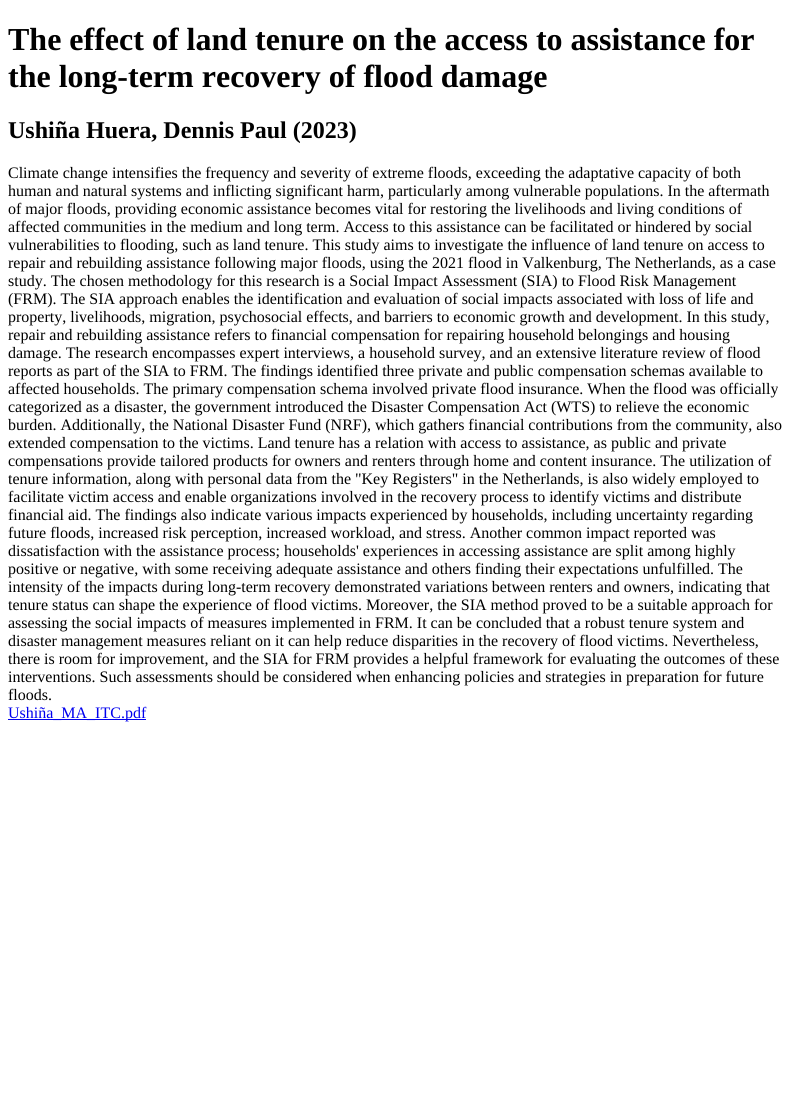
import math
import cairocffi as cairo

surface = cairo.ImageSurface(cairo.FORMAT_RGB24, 792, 1094)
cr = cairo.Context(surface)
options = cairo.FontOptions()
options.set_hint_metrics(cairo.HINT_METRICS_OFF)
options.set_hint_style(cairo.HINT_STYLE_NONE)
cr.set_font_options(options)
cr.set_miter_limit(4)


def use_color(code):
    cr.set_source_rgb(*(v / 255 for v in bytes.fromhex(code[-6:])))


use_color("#ffffff")
cr.paint()
cr.select_font_face("Liberation Serif", cairo.FONT_SLANT_NORMAL, cairo.FONT_WEIGHT_BOLD)
cr.set_font_size(32)
use_color("#000000")
cr.move_to(8, 50)
cr.show_text("The effect of land tenure on the access to assistance for")
cr.move_to(8, 87)
cr.show_text("the long-term recovery of flood damage")
cr.set_font_size(24)
cr.move_to(8, 138)
cr.show_text("Ushiña Huera, Dennis Paul (2023)")
cr.select_font_face("Liberation Serif")
cr.set_font_size(16)
cr.move_to(8, 178)
cr.show_text("Climate change intensifies the frequency and severity of extreme floods, exceeding the adaptative capacity of both")
cr.move_to(8, 196)
cr.show_text("human and natural systems and inflicting significant harm, particularly among vulnerable populations. In the aftermath")
cr.move_to(8, 214)
cr.show_text("of major floods, providing economic assistance becomes vital for restoring the livelihoods and living conditions of")
cr.move_to(8, 232)
cr.show_text("affected communities in the medium and long term. Access to this assistance can be facilitated or hindered by social")
cr.move_to(8, 250)
cr.show_text("vulnerabilities to flooding, such as land tenure. This study aims to investigate the influence of land tenure on access to")
cr.move_to(8, 268)
cr.show_text("repair and rebuilding assistance following major floods, using the 2021 flood in Valkenburg, The Netherlands, as a case")
cr.move_to(8, 286)
cr.show_text("study. The chosen methodology for this research is a Social Impact Assessment (SIA) to Flood Risk Management")
cr.move_to(8, 304)
cr.show_text("(FRM). The SIA approach enables the identification and evaluation of social impacts associated with loss of life and")
cr.move_to(8, 322)
cr.show_text("property, livelihoods, migration, psychosocial effects, and barriers to economic growth and development. In this study,")
cr.move_to(8, 340)
cr.show_text("repair and rebuilding assistance refers to financial compensation for repairing household belongings and housing")
cr.move_to(8, 358)
cr.show_text("damage. The research encompasses expert interviews, a household survey, and an extensive literature review of flood")
cr.move_to(8, 376)
cr.show_text("reports as part of the SIA to FRM. The findings identified three private and public compensation schemas available to")
cr.move_to(8, 394)
cr.show_text("affected households. The primary compensation schema involved private flood insurance. When the flood was officially")
cr.move_to(8, 412)
cr.show_text("categorized as a disaster, the government introduced the Disaster Compensation Act (WTS) to relieve the economic")
cr.move_to(8, 430)
cr.show_text("burden. Additionally, the National Disaster Fund (NRF), which gathers financial contributions from the community, also")
cr.move_to(8, 448)
cr.show_text("extended compensation to the victims. Land tenure has a relation with access to assistance, as public and private")
cr.move_to(8, 466)
cr.show_text("compensations provide tailored products for owners and renters through home and content insurance. The utilization of")
cr.move_to(8, 484)
cr.show_text("tenure information, along with personal data from the \"Key Registers\" in the Netherlands, is also widely employed to")
cr.move_to(8, 502)
cr.show_text("facilitate victim access and enable organizations involved in the recovery process to identify victims and distribute")
cr.move_to(8, 520)
cr.show_text("financial aid. The findings also indicate various impacts experienced by households, including uncertainty regarding")
cr.move_to(8, 538)
cr.show_text("future floods, increased risk perception, increased workload, and stress. Another common impact reported was")
cr.move_to(8, 556)
cr.show_text("dissatisfaction with the assistance process; households' experiences in accessing assistance are split among highly")
cr.move_to(8, 574)
cr.show_text("positive or negative, with some receiving adequate assistance and others finding their expectations unfulfilled. The")
cr.move_to(8, 592)
cr.show_text("intensity of the impacts during long-term recovery demonstrated variations between renters and owners, indicating that")
cr.move_to(8, 610)
cr.show_text("tenure status can shape the experience of flood victims. Moreover, the SIA method proved to be a suitable approach for")
cr.move_to(8, 628)
cr.show_text("assessing the social impacts of measures implemented in FRM. It can be concluded that a robust tenure system and")
cr.move_to(8, 646)
cr.show_text("disaster management measures reliant on it can help reduce disparities in the recovery of flood victims. Nevertheless,")
cr.move_to(8, 664)
cr.show_text("there is room for improvement, and the SIA for FRM provides a helpful framework for evaluating the outcomes of these")
cr.move_to(8, 682)
cr.show_text("interventions. Such assessments should be considered when enhancing policies and strategies in preparation for future")
cr.move_to(8, 700)
cr.show_text("floods.")
use_color("#0000ee")
cr.rectangle(8, 719, 138, 1)
cr.fill()
cr.move_to(8, 718)
cr.show_text("Ushiña_MA_ITC.pdf")
surface.write_to_png("result.png")
